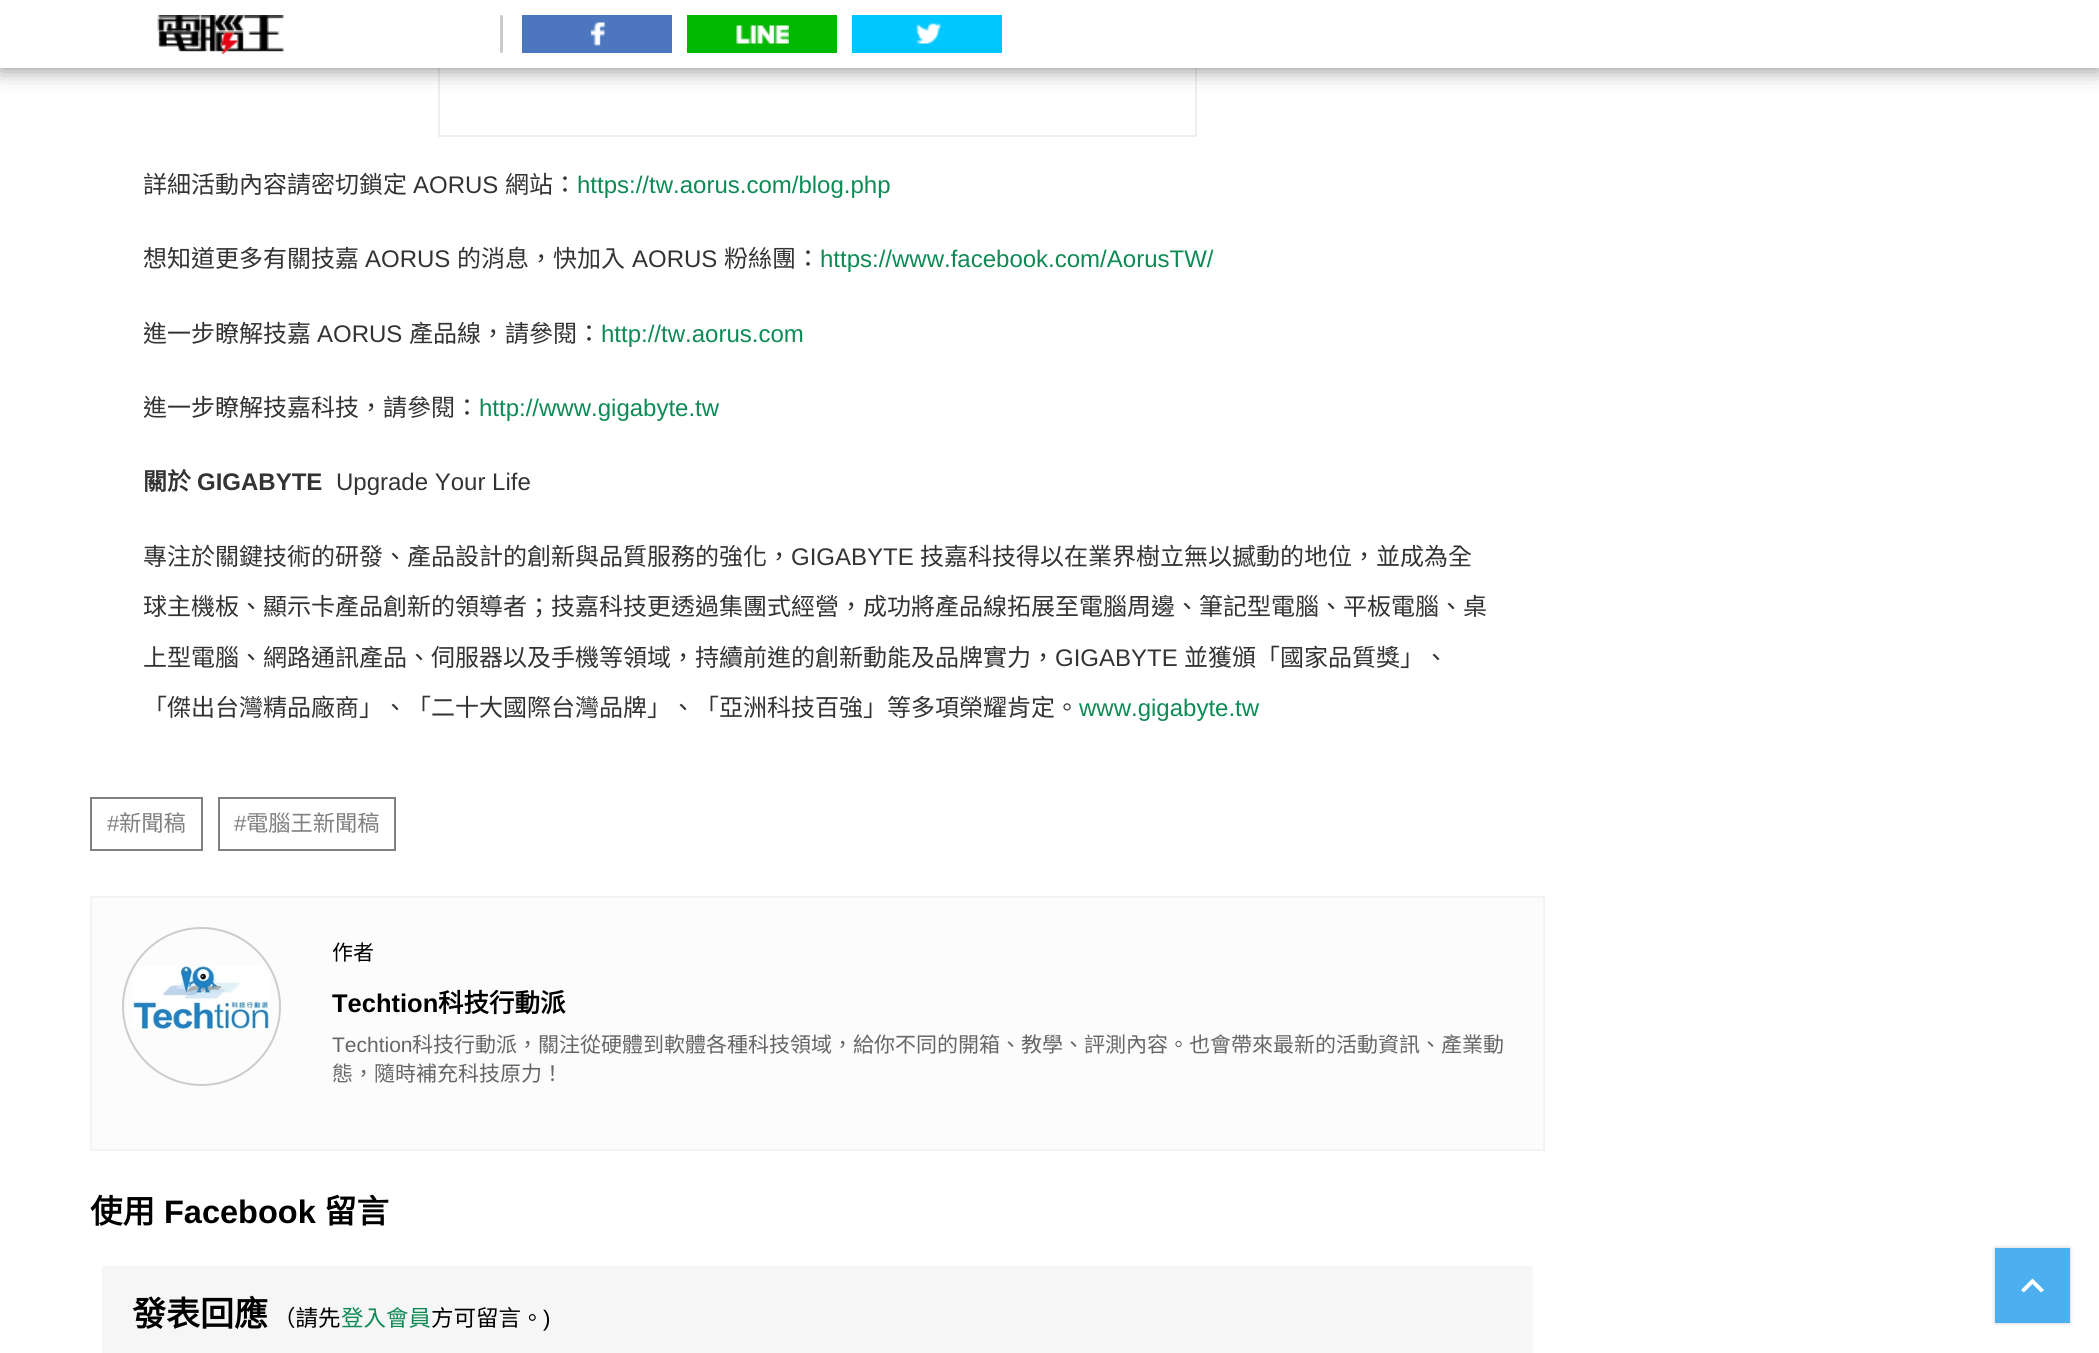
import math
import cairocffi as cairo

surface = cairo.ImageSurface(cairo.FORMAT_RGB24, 2099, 1353)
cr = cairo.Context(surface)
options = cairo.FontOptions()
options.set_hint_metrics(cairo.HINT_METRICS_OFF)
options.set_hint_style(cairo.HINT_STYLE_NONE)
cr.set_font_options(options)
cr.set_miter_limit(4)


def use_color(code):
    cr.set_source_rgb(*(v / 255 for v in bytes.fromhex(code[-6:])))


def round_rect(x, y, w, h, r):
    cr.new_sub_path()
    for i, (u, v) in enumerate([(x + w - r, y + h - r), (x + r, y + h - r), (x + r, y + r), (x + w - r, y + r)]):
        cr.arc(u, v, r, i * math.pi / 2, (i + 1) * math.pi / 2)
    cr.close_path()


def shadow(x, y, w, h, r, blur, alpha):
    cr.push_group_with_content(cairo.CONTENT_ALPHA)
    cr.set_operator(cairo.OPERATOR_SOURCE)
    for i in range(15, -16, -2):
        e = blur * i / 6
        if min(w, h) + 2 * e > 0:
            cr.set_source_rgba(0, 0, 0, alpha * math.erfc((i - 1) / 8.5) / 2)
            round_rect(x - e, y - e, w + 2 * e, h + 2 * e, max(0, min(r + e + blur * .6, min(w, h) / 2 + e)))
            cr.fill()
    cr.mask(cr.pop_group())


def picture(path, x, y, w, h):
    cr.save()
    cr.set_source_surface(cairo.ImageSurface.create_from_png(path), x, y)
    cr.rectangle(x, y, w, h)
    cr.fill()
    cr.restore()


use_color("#ffffff")
cr.paint()
cr.rectangle(439, -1, 757, 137)
use_color("#eeeeee")
cr.stroke()
use_color("#000000")
shadow(0, 0, 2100, 68, 0, 11, 0.5)
use_color("#ffffff")
cr.rectangle(0, 0, 2099, 68)
cr.fill()
picture("img1.png", 157, 15, 127, 39)
use_color("#cccccc")
round_rect(500, 15, 3, 38, 1.5)
cr.fill()
use_color("#4c76be")
cr.rectangle(522, 15, 150, 38)
cr.fill()
picture("img2.png", 590, 22, 15, 24)
use_color("#00b800")
cr.rectangle(687, 15, 150, 38)
cr.fill()
picture("img3.png", 736, 25, 53, 19)
use_color("#00c7ff")
cr.rectangle(852, 15, 150, 38)
cr.fill()
picture("img4.png", 916, 23, 25, 21)
cr.select_font_face("Noto Sans CJK TC")
cr.set_font_size(24)
use_color("#333333")
cr.move_to(143, 193)
cr.show_text("詳細活動內容請密切鎖定")
cr.select_font_face("Liberation Sans")
cr.move_to(413, 193)
cr.show_text("AORUS")
cr.select_font_face("Noto Sans CJK TC")
cr.move_to(505, 193)
cr.show_text("網站：")
cr.select_font_face("Liberation Sans")
use_color("#0e8b55")
cr.move_to(577, 193)
cr.show_text("https://tw.aorus.com/blog.php")
cr.select_font_face("Noto Sans CJK TC")
use_color("#333333")
cr.move_to(143, 267)
cr.show_text("想知道更多有關技嘉")
cr.select_font_face("Liberation Sans")
cr.move_to(365, 267)
cr.show_text("AORUS")
cr.select_font_face("Noto Sans CJK TC")
cr.move_to(457, 267)
cr.show_text("的消息，快加入")
cr.select_font_face("Liberation Sans")
cr.move_to(632, 267)
cr.show_text("AORUS")
cr.select_font_face("Noto Sans CJK TC")
cr.move_to(724, 267)
cr.show_text("粉絲團：")
cr.select_font_face("Liberation Sans")
use_color("#0e8b55")
cr.move_to(820, 267)
cr.show_text("https://www.facebook.com/AorusTW/")
cr.select_font_face("Noto Sans CJK TC")
use_color("#333333")
cr.move_to(143, 342)
cr.show_text("進一步瞭解技嘉")
cr.select_font_face("Liberation Sans")
cr.move_to(317, 342)
cr.show_text("AORUS")
cr.select_font_face("Noto Sans CJK TC")
cr.move_to(409, 342)
cr.show_text("產品線，請參閱：")
cr.select_font_face("Liberation Sans")
use_color("#0e8b55")
cr.move_to(601, 342)
cr.show_text("http://tw.aorus.com")
cr.select_font_face("Noto Sans CJK TC")
use_color("#333333")
cr.move_to(143, 416)
cr.show_text("進一步瞭解技嘉科技，請參閱：")
cr.select_font_face("Liberation Sans")
use_color("#0e8b55")
cr.move_to(479, 416)
cr.show_text("http://www.gigabyte.tw")
cr.select_font_face("Noto Sans CJK TC", cairo.FONT_SLANT_NORMAL, cairo.FONT_WEIGHT_BOLD)
use_color("#333333")
cr.move_to(143, 490)
cr.show_text("關於")
cr.select_font_face("Liberation Sans", cairo.FONT_SLANT_NORMAL, cairo.FONT_WEIGHT_BOLD)
cr.move_to(197, 490)
cr.show_text("GIGABYTE")
cr.select_font_face("Liberation Sans")
cr.move_to(336, 490)
cr.show_text("Upgrade Your Life")
cr.select_font_face("Noto Sans CJK TC")
cr.move_to(143, 565)
cr.show_text("專注於關鍵技術的研發、產品設計的創新與品質服務的強化，")
cr.select_font_face("Liberation Sans")
cr.move_to(791, 565)
cr.show_text("GIGABYTE")
cr.select_font_face("Noto Sans CJK TC")
cr.move_to(920, 565)
cr.show_text("技嘉科技得以在業界樹立無以撼動的地位，並成為全")
cr.move_to(143, 615)
cr.show_text("球主機板、顯示卡產品創新的領導者；技嘉科技更透過集團式經營，成功將產品線拓展至電腦周邊、筆記型電腦、平板電腦、桌")
cr.move_to(143, 666)
cr.show_text("上型電腦、網路通訊產品、伺服器以及手機等領域，持續前進的創新動能及品牌實力，")
cr.select_font_face("Liberation Sans")
cr.move_to(1055, 666)
cr.show_text("GIGABYTE")
cr.select_font_face("Noto Sans CJK TC")
cr.move_to(1184, 666)
cr.show_text("並獲頒「國家品質獎」、")
cr.move_to(143, 716)
cr.show_text("「傑出台灣精品廠商」、「二十大國際台灣品牌」、「亞洲科技百強」等多項榮耀肯定。")
cr.select_font_face("Liberation Sans")
use_color("#0e8b55")
cr.move_to(1079, 716)
cr.show_text("www.gigabyte.tw")
cr.rectangle(91, 798, 111, 52)
use_color("#808080")
cr.stroke()
cr.set_font_size(22.25)
cr.move_to(107, 831)
cr.show_text("#")
cr.select_font_face("Noto Sans CJK TC")
cr.move_to(119, 831)
cr.show_text("新聞稿")
cr.rectangle(219, 798, 176, 52)
cr.stroke()
cr.select_font_face("Liberation Sans")
cr.move_to(234, 831)
cr.show_text("#")
cr.select_font_face("Noto Sans CJK TC")
cr.move_to(246, 831)
cr.show_text("電腦王新聞稿")
use_color("#fcfcfc")
cr.rectangle(91, 897, 1453, 253)
cr.fill_preserve()
use_color("#f3f3f3")
cr.stroke()
cr.arc(201.5, 1006.5, 78.5, 0, 2 * math.pi)
use_color("#cccccc")
cr.stroke()
picture("img5.png", 132, 966, 138, 64)
cr.set_font_size(21)
use_color("#000000")
cr.move_to(332, 960)
cr.show_text("作者")
cr.select_font_face("Liberation Sans", cairo.FONT_SLANT_NORMAL, cairo.FONT_WEIGHT_BOLD)
cr.set_font_size(25.5)
cr.move_to(332, 1012)
cr.show_text("Techtion")
cr.select_font_face("Noto Sans CJK TC", cairo.FONT_SLANT_NORMAL, cairo.FONT_WEIGHT_BOLD)
cr.move_to(438, 1012)
cr.show_text("科技行動派")
cr.select_font_face("Liberation Sans")
cr.set_font_size(21)
use_color("#666666")
cr.move_to(332, 1052)
cr.show_text("Techtion")
cr.select_font_face("Noto Sans CJK TC")
cr.move_to(412, 1052)
cr.show_text("科技行動派，關注從硬體到軟體各種科技領域，給你不同的開箱、教學、評測內容。也會帶來最新的活動資訊、產業動")
cr.move_to(332, 1081)
cr.show_text("態，隨時補充科技原力！")
cr.select_font_face("Noto Sans CJK TC", cairo.FONT_SLANT_NORMAL, cairo.FONT_WEIGHT_BOLD)
cr.set_font_size(32.5)
use_color("#000000")
cr.move_to(90, 1223)
cr.show_text("使用")
cr.select_font_face("Liberation Sans", cairo.FONT_SLANT_NORMAL, cairo.FONT_WEIGHT_BOLD)
cr.move_to(164, 1223)
cr.show_text("Facebook")
cr.select_font_face("Noto Sans CJK TC", cairo.FONT_SLANT_NORMAL, cairo.FONT_WEIGHT_BOLD)
cr.move_to(324, 1223)
cr.show_text("留言")
use_color("#f6f6f6")
cr.rectangle(102, 1266, 1431, 87)
cr.fill()
cr.set_font_size(34)
use_color("#000000")
cr.move_to(132, 1326)
cr.show_text("發表回應")
cr.select_font_face("Noto Sans CJK TC")
cr.set_font_size(22.5)
cr.move_to(273, 1326)
cr.show_text("（請先")
use_color("#0e8b55")
cr.move_to(341, 1326)
cr.show_text("登入會員")
use_color("#000000")
cr.move_to(431, 1326)
cr.show_text("方可留言。")
cr.select_font_face("Liberation Sans")
cr.move_to(543, 1326)
cr.show_text(")")
use_color("#cccccc")
shadow(1995, 1248, 75, 75, 0, 2, 1)
use_color("#4caff0")
cr.rectangle(1995, 1248, 75, 75)
cr.fill()
use_color("#ffffff")
cr.new_path()
cr.move_to(2021, 1290)
cr.line_to(2024, 1292.5)
cr.line_to(2032.5, 1284)
cr.line_to(2041, 1292.5)
cr.line_to(2044, 1290)
cr.line_to(2032.5, 1278.5)
cr.close_path()
cr.fill()
surface.write_to_png("result.png")
